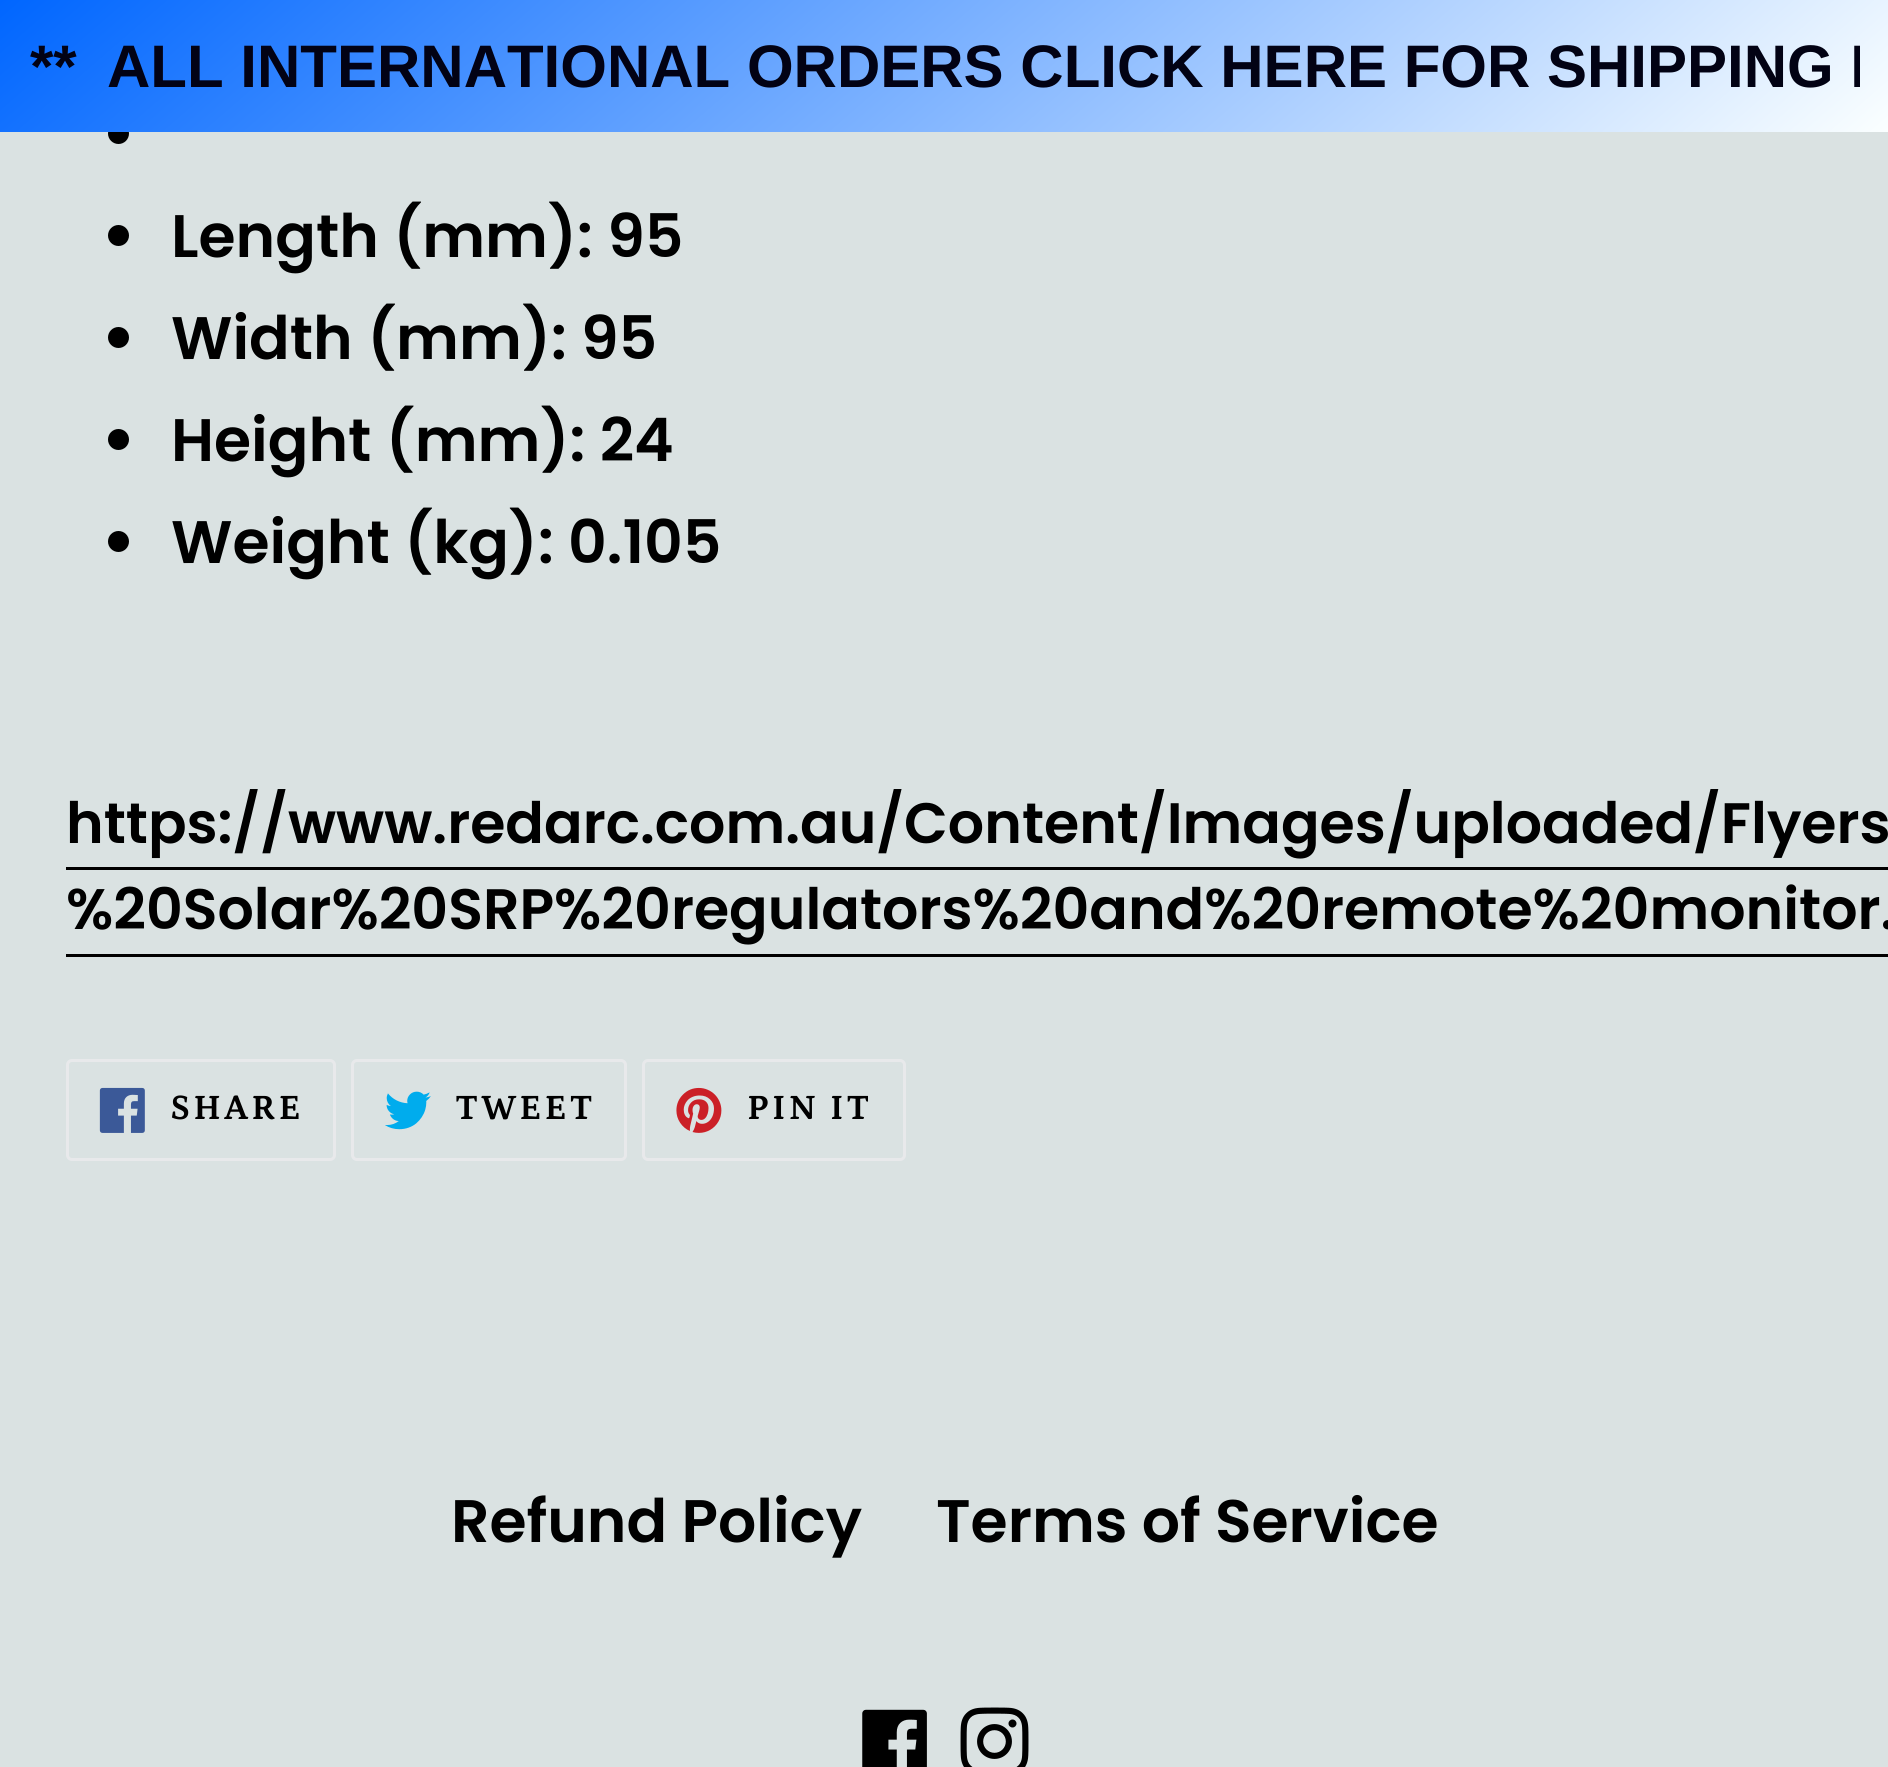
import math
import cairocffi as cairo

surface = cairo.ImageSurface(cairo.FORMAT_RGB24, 1888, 1767)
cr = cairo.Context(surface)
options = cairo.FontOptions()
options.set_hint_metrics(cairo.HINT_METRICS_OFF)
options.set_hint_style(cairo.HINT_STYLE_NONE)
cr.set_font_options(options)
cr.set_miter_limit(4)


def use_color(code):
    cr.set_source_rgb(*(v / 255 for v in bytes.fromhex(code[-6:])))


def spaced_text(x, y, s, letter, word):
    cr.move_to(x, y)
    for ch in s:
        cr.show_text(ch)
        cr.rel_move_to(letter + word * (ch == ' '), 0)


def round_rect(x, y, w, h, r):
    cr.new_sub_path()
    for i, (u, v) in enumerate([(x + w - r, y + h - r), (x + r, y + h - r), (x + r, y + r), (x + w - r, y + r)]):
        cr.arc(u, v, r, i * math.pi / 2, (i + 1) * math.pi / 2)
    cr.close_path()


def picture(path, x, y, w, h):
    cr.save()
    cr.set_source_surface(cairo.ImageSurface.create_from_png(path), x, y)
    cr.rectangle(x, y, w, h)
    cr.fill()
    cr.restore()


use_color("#dae2e2")
cr.paint()
use_color("#000000")
cr.arc(118.5, 133.5, 10.5, 0, 2 * math.pi)
cr.fill()
gradient = cairo.LinearGradient(506, -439, 1384, 571)
gradient.add_color_stop_rgba(0, 0, 0.4, 1, 1)
gradient.add_color_stop_rgba(1, 0.984, 1, 1, 1)
cr.set_source(gradient)
cr.rectangle(0, 0, 1888, 132)
cr.fill()
cr.select_font_face("Liberation Sans", cairo.FONT_SLANT_NORMAL, cairo.FONT_WEIGHT_BOLD)
cr.set_font_size(60)
use_color("#020214")
cr.move_to(30, 87)
cr.show_text("**")
cr.save()
cr.rectangle(30, 30, 1830, 72)
cr.clip()
cr.move_to(107, 87)
cr.show_text("ALL INTERNATIONAL ORDERS CLICK HERE FOR SHIPPING I")
cr.restore()
use_color("#000000")
cr.new_path()
cr.arc(118.5, 235.5, 10.5, 0, 2 * math.pi)
cr.fill()
cr.select_font_face("Poppins SemiBold")
cr.move_to(171, 257)
cr.show_text("Length (mm): 95")
cr.new_path()
cr.arc(118.5, 337.5, 10.5, 0, 2 * math.pi)
cr.fill()
cr.move_to(171, 359)
cr.show_text("Width (mm): 95")
cr.new_path()
cr.arc(118.5, 439.5, 10.5, 0, 2 * math.pi)
cr.fill()
cr.move_to(171, 461)
cr.show_text("Height (mm): 24")
cr.new_path()
cr.arc(118.5, 541.5, 10.5, 0, 2 * math.pi)
cr.fill()
cr.move_to(171, 563)
cr.show_text("Weight (kg): 0.105")
cr.set_font_size(57)
cr.move_to(66, 843)
cr.show_text("https://www.redarc.com.au/Content/Images/uploaded/Flyers")
cr.rectangle(66, 867, 1822, 3)
cr.fill()
cr.move_to(66, 929)
cr.show_text("%20Solar%20SRP%20regulators%20and%20remote%20monitor.")
cr.rectangle(66, 954, 1822, 3)
cr.fill()
round_rect(67.5, 1060.5, 267, 99, 4.5)
use_color("#e8e9eb")
cr.set_line_width(3)
cr.stroke()
picture("img1.png", 99, 1087, 46, 46)
cr.select_font_face("Petrona", cairo.FONT_SLANT_NORMAL, cairo.FONT_WEIGHT_BOLD)
cr.set_font_size(36)
use_color("#000000")
spaced_text(170, 1119, "SHARE", 3, 0)
round_rect(352.5, 1060.5, 273, 99, 4.5)
use_color("#e8e9eb")
cr.stroke()
picture("img2.png", 385, 1091, 46, 39)
use_color("#000000")
spaced_text(455, 1119, "TWEET", 3, 0)
round_rect(643.5, 1060.5, 261, 99, 4.5)
use_color("#e8e9eb")
cr.stroke()
picture("img3.png", 676, 1087, 46, 46)
use_color("#000000")
spaced_text(747, 1119, "PIN IT", 3, 0)
cr.select_font_face("Poppins SemiBold")
cr.set_font_size(60)
cr.move_to(451, 1542)
cr.show_text("Refund Policy")
cr.move_to(936, 1542)
cr.show_text("Terms of Service")
picture("img4.png", 862, 1709, 65, 58)
picture("img5.png", 960, 1707, 69, 60)
surface.write_to_png("result.png")
